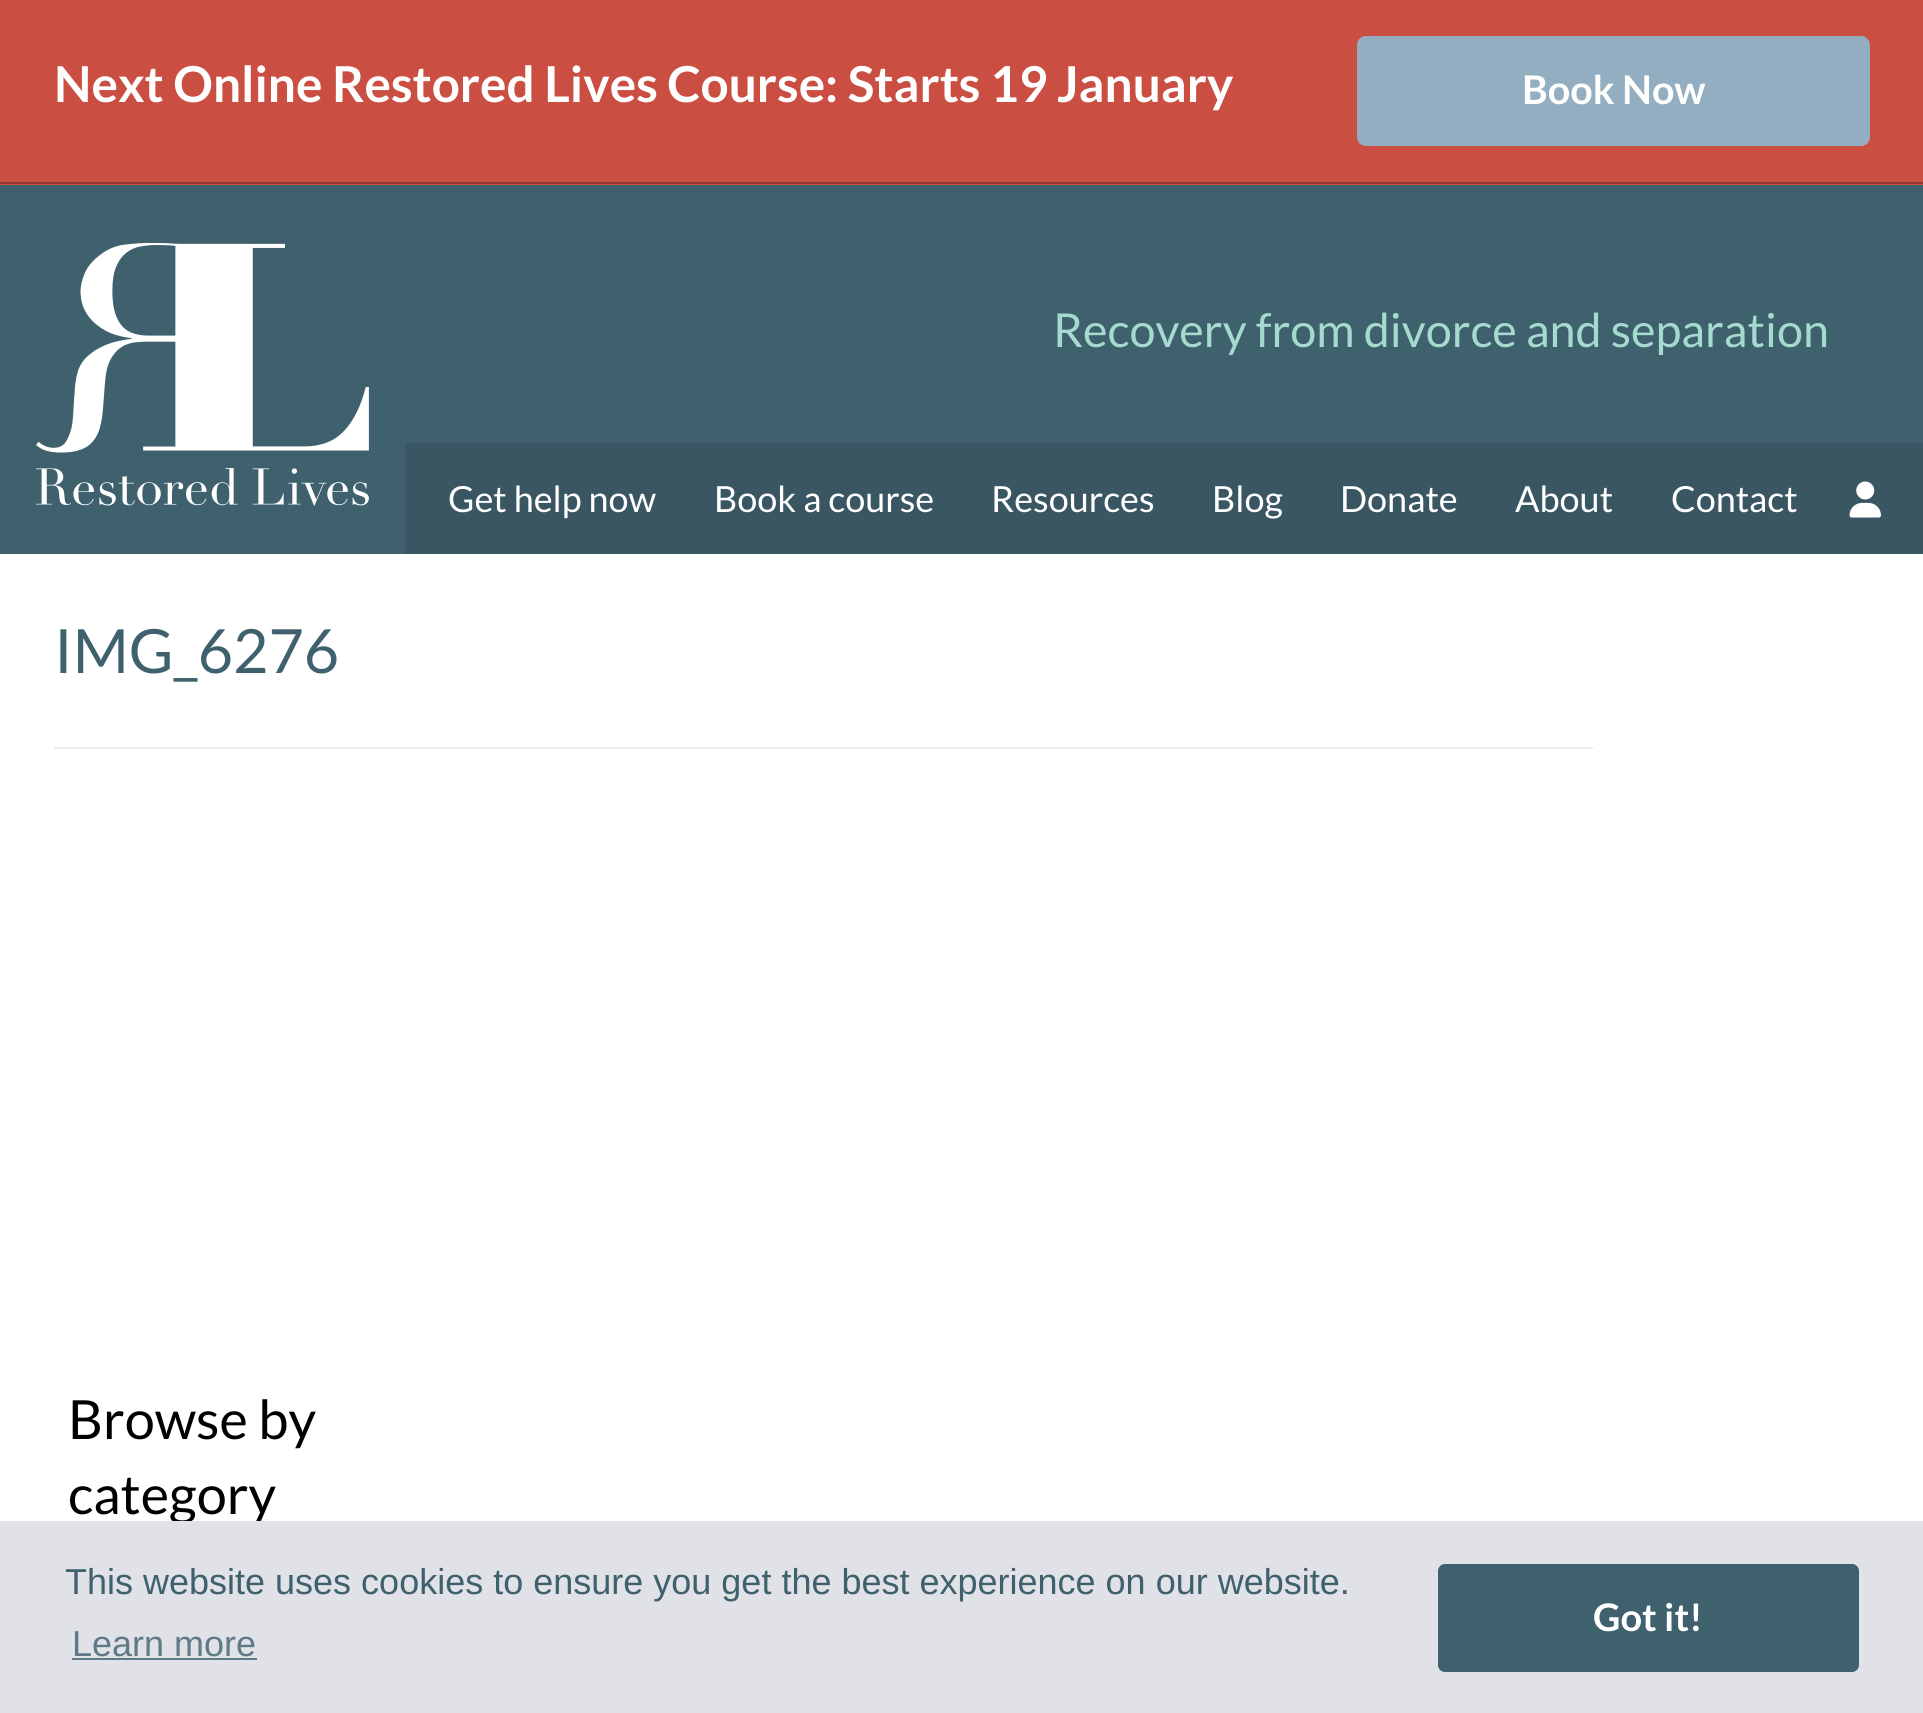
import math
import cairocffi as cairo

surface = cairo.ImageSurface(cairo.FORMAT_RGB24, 1923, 1713)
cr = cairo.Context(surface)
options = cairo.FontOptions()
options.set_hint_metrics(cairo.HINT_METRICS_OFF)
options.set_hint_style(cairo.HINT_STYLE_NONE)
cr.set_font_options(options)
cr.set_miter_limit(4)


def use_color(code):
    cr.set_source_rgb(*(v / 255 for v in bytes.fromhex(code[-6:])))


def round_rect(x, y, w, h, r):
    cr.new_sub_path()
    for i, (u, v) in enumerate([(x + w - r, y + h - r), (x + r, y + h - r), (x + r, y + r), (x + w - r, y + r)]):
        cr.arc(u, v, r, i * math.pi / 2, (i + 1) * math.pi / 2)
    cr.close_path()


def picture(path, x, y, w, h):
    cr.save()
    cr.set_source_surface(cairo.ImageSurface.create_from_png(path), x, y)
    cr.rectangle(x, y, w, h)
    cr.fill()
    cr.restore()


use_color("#ffffff")
cr.paint()
use_color("#ca4e42")
cr.rectangle(0, 0, 1923, 185)
cr.fill()
use_color("#8d372e")
cr.rectangle(0, 182, 1923, 2)
cr.fill()
cr.select_font_face("Lato", cairo.FONT_SLANT_NORMAL, cairo.FONT_WEIGHT_BOLD)
cr.set_font_size(49.5)
use_color("#ffffff")
cr.move_to(54, 102)
cr.show_text("Next Online Restored Lives Course: Starts 19 January")
use_color("#94aec1")
round_rect(1357, 36, 513, 110, 9)
cr.fill()
cr.set_font_size(39.5)
use_color("#ffffff")
cr.move_to(1522, 104)
cr.show_text("Book Now")
use_color("#3f606d")
cr.rectangle(0, 185, 1923, 369)
cr.fill()
picture("img1.png", 36, 243, 333, 263)
cr.select_font_face("Lato")
cr.set_font_size(46.75)
use_color("#a5dacf")
cr.move_to(1053, 347)
cr.show_text("Recovery from divorce and separation")
use_color("#395662")
cr.rectangle(405, 443, 1518, 111)
cr.fill()
cr.set_font_size(36)
use_color("#ffffff")
cr.move_to(448, 512)
cr.show_text("Get help now")
cr.move_to(714, 512)
cr.show_text("Book a course")
cr.move_to(991, 512)
cr.show_text("Resources")
cr.move_to(1212, 512)
cr.show_text("Blog")
cr.move_to(1340, 512)
cr.show_text("Donate")
cr.move_to(1515, 512)
cr.show_text("About")
cr.move_to(1671, 512)
cr.show_text("Contact")
picture("img2.png", 1849, 481, 32, 37)
use_color("#eeeeee")
cr.rectangle(54, 747, 1539, 2)
cr.fill()
cr.set_font_size(61)
use_color("#3f606d")
cr.move_to(54, 673)
cr.show_text("IMG_6276")
cr.set_font_size(54)
use_color("#000000")
cr.move_to(68, 1439)
cr.show_text("Browse by")
cr.move_to(68, 1514)
cr.show_text("category")
use_color("#e0e2e7")
cr.rectangle(0, 1521, 1923, 192)
cr.fill()
cr.select_font_face("Liberation Sans")
cr.set_font_size(36)
use_color("#3f606d")
cr.move_to(65, 1594)
cr.show_text("This website uses cookies to ensure you get the best experience on our website.")
use_color("#5f7a86")
cr.move_to(72, 1656)
cr.show_text("Learn more")
cr.rectangle(72, 1658, 185, 2)
cr.fill()
use_color("#3f606d")
round_rect(1438, 1564, 421, 108, 7)
cr.fill()
cr.select_font_face("Lato", cairo.FONT_SLANT_NORMAL, cairo.FONT_WEIGHT_BOLD)
cr.set_font_size(38)
use_color("#ffffff")
cr.move_to(1593, 1631)
cr.show_text("Got it!")
surface.write_to_png("result.png")
